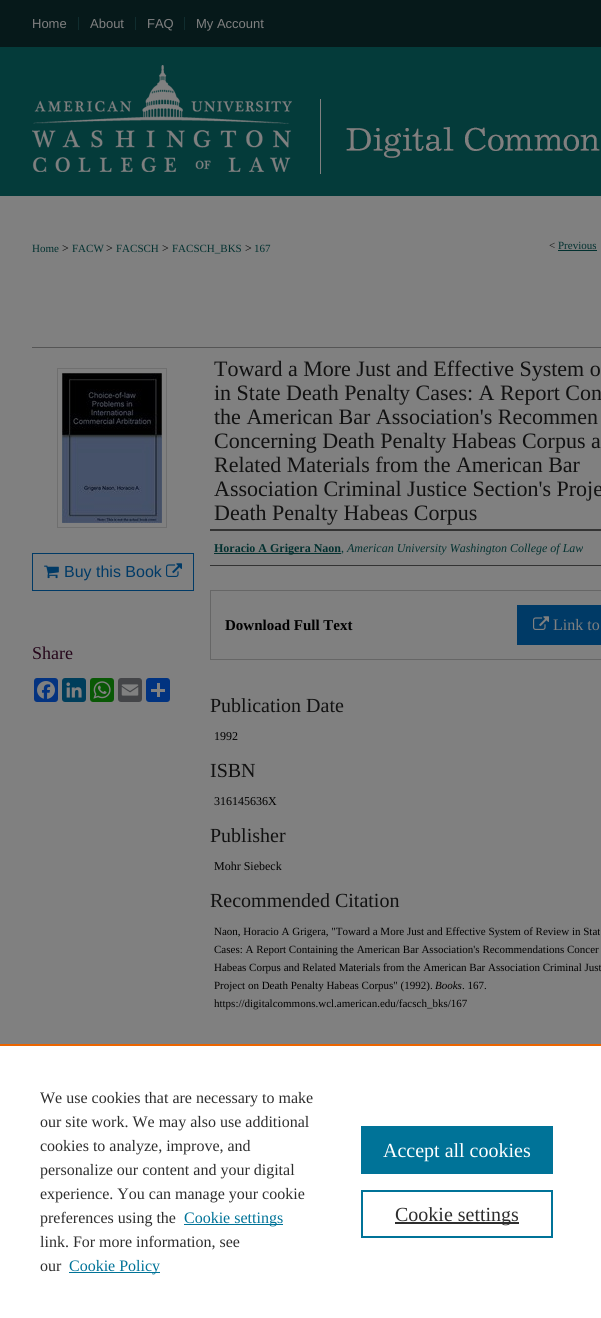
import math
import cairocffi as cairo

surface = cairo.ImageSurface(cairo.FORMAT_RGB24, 601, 1318)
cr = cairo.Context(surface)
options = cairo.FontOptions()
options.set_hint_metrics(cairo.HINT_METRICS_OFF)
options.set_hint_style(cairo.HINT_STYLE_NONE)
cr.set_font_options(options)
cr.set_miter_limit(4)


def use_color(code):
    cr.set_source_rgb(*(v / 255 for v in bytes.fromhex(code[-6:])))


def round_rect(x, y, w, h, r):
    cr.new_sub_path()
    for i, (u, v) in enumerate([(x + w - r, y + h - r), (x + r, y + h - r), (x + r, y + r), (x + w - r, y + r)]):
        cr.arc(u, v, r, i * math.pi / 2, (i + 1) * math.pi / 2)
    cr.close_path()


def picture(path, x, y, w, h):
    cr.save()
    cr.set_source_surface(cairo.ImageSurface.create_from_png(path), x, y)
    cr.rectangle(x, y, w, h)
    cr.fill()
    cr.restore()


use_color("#808080")
cr.paint()
picture("img1.png", 0, 0, 601, 47)
use_color("#102d2f")
cr.rectangle(78, 17, 1, 13)
cr.fill()
cr.select_font_face("Liberation Sans")
cr.set_font_size(13)
use_color("#808080")
cr.move_to(32, 28)
cr.show_text("Home")
use_color("#102d2f")
cr.rectangle(135, 17, 1, 13)
cr.fill()
use_color("#808080")
cr.move_to(90, 28)
cr.show_text("About")
use_color("#102d2f")
cr.rectangle(184, 17, 1, 13)
cr.fill()
use_color("#808080")
cr.move_to(147, 28)
cr.show_text("FAQ")
cr.move_to(196, 28)
cr.show_text("My Account")
picture("img2.png", 0, 47, 601, 149)
picture("img3.png", 32, 65, 260, 107)
cr.select_font_face("Liberation Serif")
cr.set_font_size(11)
use_color("#033130")
cr.move_to(32, 252)
cr.show_text("Home")
cr.set_font_size(12)
use_color("#000000")
cr.move_to(62, 252)
cr.show_text(">")
cr.set_font_size(11)
use_color("#033130")
cr.move_to(72, 252)
cr.show_text("FACW")
cr.set_font_size(12)
use_color("#000000")
cr.move_to(106, 252)
cr.show_text(">")
cr.set_font_size(11)
use_color("#033130")
cr.move_to(116, 252)
cr.show_text("FACSCH")
cr.set_font_size(12)
use_color("#000000")
cr.move_to(162, 252)
cr.show_text(">")
cr.set_font_size(11)
use_color("#033130")
cr.move_to(172, 252)
cr.show_text("FACSCH_BKS")
cr.set_font_size(12)
use_color("#000000")
cr.move_to(245, 252)
cr.show_text(">")
cr.set_font_size(11)
use_color("#033130")
cr.move_to(254, 252)
cr.show_text("167")
use_color("#111111")
cr.move_to(549, 249)
cr.show_text("<")
use_color("#033130")
cr.move_to(558, 249)
cr.show_text("Previous")
cr.rectangle(558, 250, 39, 1)
cr.fill()
cr.rectangle(57.5, 368.5, 109, 159)
use_color("#6f6f6f")
cr.set_line_width(1)
cr.stroke()
picture("img4.png", 62, 373, 100, 150)
cr.rectangle(32.5, 553.5, 161, 37)
use_color("#003a66")
cr.stroke()
picture("img5.png", 44, 565, 15, 14)
cr.select_font_face("Liberation Sans")
cr.set_font_size(16)
cr.move_to(64, 577)
cr.show_text("Buy this Book")
picture("img6.png", 166, 563, 16, 14)
cr.select_font_face("Liberation Serif")
cr.set_font_size(18)
use_color("#25051a")
cr.move_to(32, 659)
cr.show_text("Share")
use_color("#043380")
round_rect(34, 678, 24, 24, 3)
cr.fill()
picture("img7.png", 37, 681, 18, 18)
use_color("#003e5b")
round_rect(62, 678, 24, 24, 3)
cr.fill()
picture("img8.png", 66, 682, 16, 16)
use_color("#095805")
round_rect(90, 678, 24, 24, 3)
cr.fill()
picture("img9.png", 93, 681, 18, 18)
use_color("#444548")
round_rect(118, 678, 24, 24, 3)
cr.fill()
picture("img10.png", 121, 684, 18, 12)
use_color("#013380")
round_rect(146, 678, 24, 24, 3)
cr.fill()
use_color("#808080")
cr.rectangle(157, 683, 3, 14)
cr.fill()
cr.rectangle(151, 689, 14, 3)
cr.fill()
use_color("#555555")
cr.rectangle(32, 347, 569, 1)
cr.fill()
cr.set_font_size(22)
use_color("#111111")
cr.move_to(214, 376)
cr.show_text("Toward a More Just and Effective System o")
cr.move_to(214, 400)
cr.show_text("in State Death Penalty Cases: A Report Con")
cr.move_to(214, 424)
cr.show_text("the American Bar Association's Recommen")
cr.move_to(214, 448)
cr.show_text("Concerning Death Penalty Habeas Corpus a")
cr.move_to(214, 472)
cr.show_text("Related Materials from the American Bar")
cr.move_to(214, 496)
cr.show_text("Association Criminal Justice Section's Proje")
cr.move_to(214, 520)
cr.show_text("Death Penalty Habeas Corpus")
use_color("#333333")
cr.rectangle(210, 529, 391, 2)
cr.fill()
cr.rectangle(210, 565, 391, 1)
cr.fill()
use_color("#033130")
cr.rectangle(214, 553, 127, 1)
cr.fill()
cr.select_font_face("Liberation Serif", cairo.FONT_SLANT_NORMAL, cairo.FONT_WEIGHT_BOLD)
cr.set_font_size(12)
cr.move_to(214, 552)
cr.show_text("Horacio A Grigera Naon")
cr.select_font_face("Liberation Serif")
cr.move_to(341, 552)
cr.show_text(",")
cr.select_font_face("Liberation Serif", cairo.FONT_SLANT_ITALIC)
cr.move_to(347, 552)
cr.show_text("American University Washington College of Law")
cr.rectangle(210.5, 590.5, 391, 69)
use_color("#666666")
cr.stroke()
cr.select_font_face("Liberation Serif", cairo.FONT_SLANT_NORMAL, cairo.FONT_WEIGHT_BOLD)
cr.set_font_size(15)
use_color("#000000")
cr.move_to(225, 630)
cr.show_text("Download Full Text")
use_color("#003a66")
cr.rectangle(517, 605, 84, 40)
cr.fill()
picture("img11.png", 533, 616, 16, 14)
cr.select_font_face("Liberation Serif")
cr.set_font_size(16)
use_color("#808080")
cr.move_to(553, 630)
cr.show_text("Link to")
cr.set_font_size(20)
use_color("#111111")
cr.move_to(210, 712)
cr.show_text("Publication Date")
cr.set_font_size(12)
use_color("#000000")
cr.move_to(214, 740)
cr.show_text("1992")
cr.set_font_size(20)
use_color("#111111")
cr.move_to(210, 777)
cr.show_text("ISBN")
cr.set_font_size(12)
use_color("#000000")
cr.move_to(214, 805)
cr.show_text("316145636X")
cr.set_font_size(20)
use_color("#111111")
cr.move_to(210, 842)
cr.show_text("Publisher")
cr.set_font_size(12)
use_color("#000000")
cr.move_to(214, 870)
cr.show_text("Mohr Siebeck")
cr.set_font_size(20)
use_color("#111111")
cr.move_to(210, 907)
cr.show_text("Recommended Citation")
cr.set_font_size(11)
use_color("#000000")
cr.move_to(214, 935)
cr.show_text("Naon, Horacio A Grigera, \"Toward a More Just and Effective System of Review in Stat")
cr.move_to(214, 953)
cr.show_text("Cases: A Report Containing the American Bar Association's Recommendations Concer")
cr.move_to(214, 971)
cr.show_text("Habeas Corpus and Related Materials from the American Bar Association Criminal Just")
cr.move_to(214, 989)
cr.show_text("Project on Death Penalty Habeas Corpus\" (1992).")
cr.select_font_face("Liberation Serif", cairo.FONT_SLANT_ITALIC)
cr.move_to(435, 989)
cr.show_text("Books")
cr.select_font_face("Liberation Serif")
cr.move_to(462, 989)
cr.show_text(". 167.")
cr.move_to(214, 1007)
cr.show_text("https://digitalcommons.wcl.american.edu/facsch_bks/167")
use_color("#ffffff")
cr.rectangle(0, 1046, 601, 272)
cr.fill()
use_color("#eb6500")
cr.rectangle(0, 1044, 601, 2)
cr.fill()
cr.set_font_size(16)
use_color("#2e2e2e")
cr.move_to(40, 1103)
cr.show_text("We use cookies that are necessary to make")
cr.move_to(40, 1127)
cr.show_text("our site work. We may also use additional")
cr.move_to(40, 1151)
cr.show_text("cookies to analyze, improve, and")
cr.move_to(40, 1175)
cr.show_text("personalize our content and your digital")
cr.move_to(40, 1199)
cr.show_text("experience. You can manage your cookie")
cr.move_to(40, 1223)
cr.show_text("preferences using the")
use_color("#007398")
cr.rectangle(184, 1224, 99, 1)
cr.fill()
cr.move_to(184, 1223)
cr.show_text("Cookie settings")
use_color("#2e2e2e")
cr.move_to(40, 1247)
cr.show_text("link. For more information, see")
cr.move_to(40, 1271)
cr.show_text("our")
use_color("#007398")
cr.rectangle(69, 1272, 91, 1)
cr.fill()
cr.move_to(69, 1271)
cr.show_text("Cookie Policy")
cr.rectangle(361, 1126, 192, 48)
cr.fill()
cr.set_font_size(20)
use_color("#ffffff")
cr.move_to(383, 1157)
cr.show_text("Accept all cookies")
cr.rectangle(362, 1191, 190, 46)
use_color("#007398")
cr.set_line_width(2)
cr.stroke()
use_color("#2e2e2e")
cr.rectangle(395, 1222, 124, 2)
cr.fill()
cr.move_to(395, 1221)
cr.show_text("Cookie settings")
surface.write_to_png("result.png")
